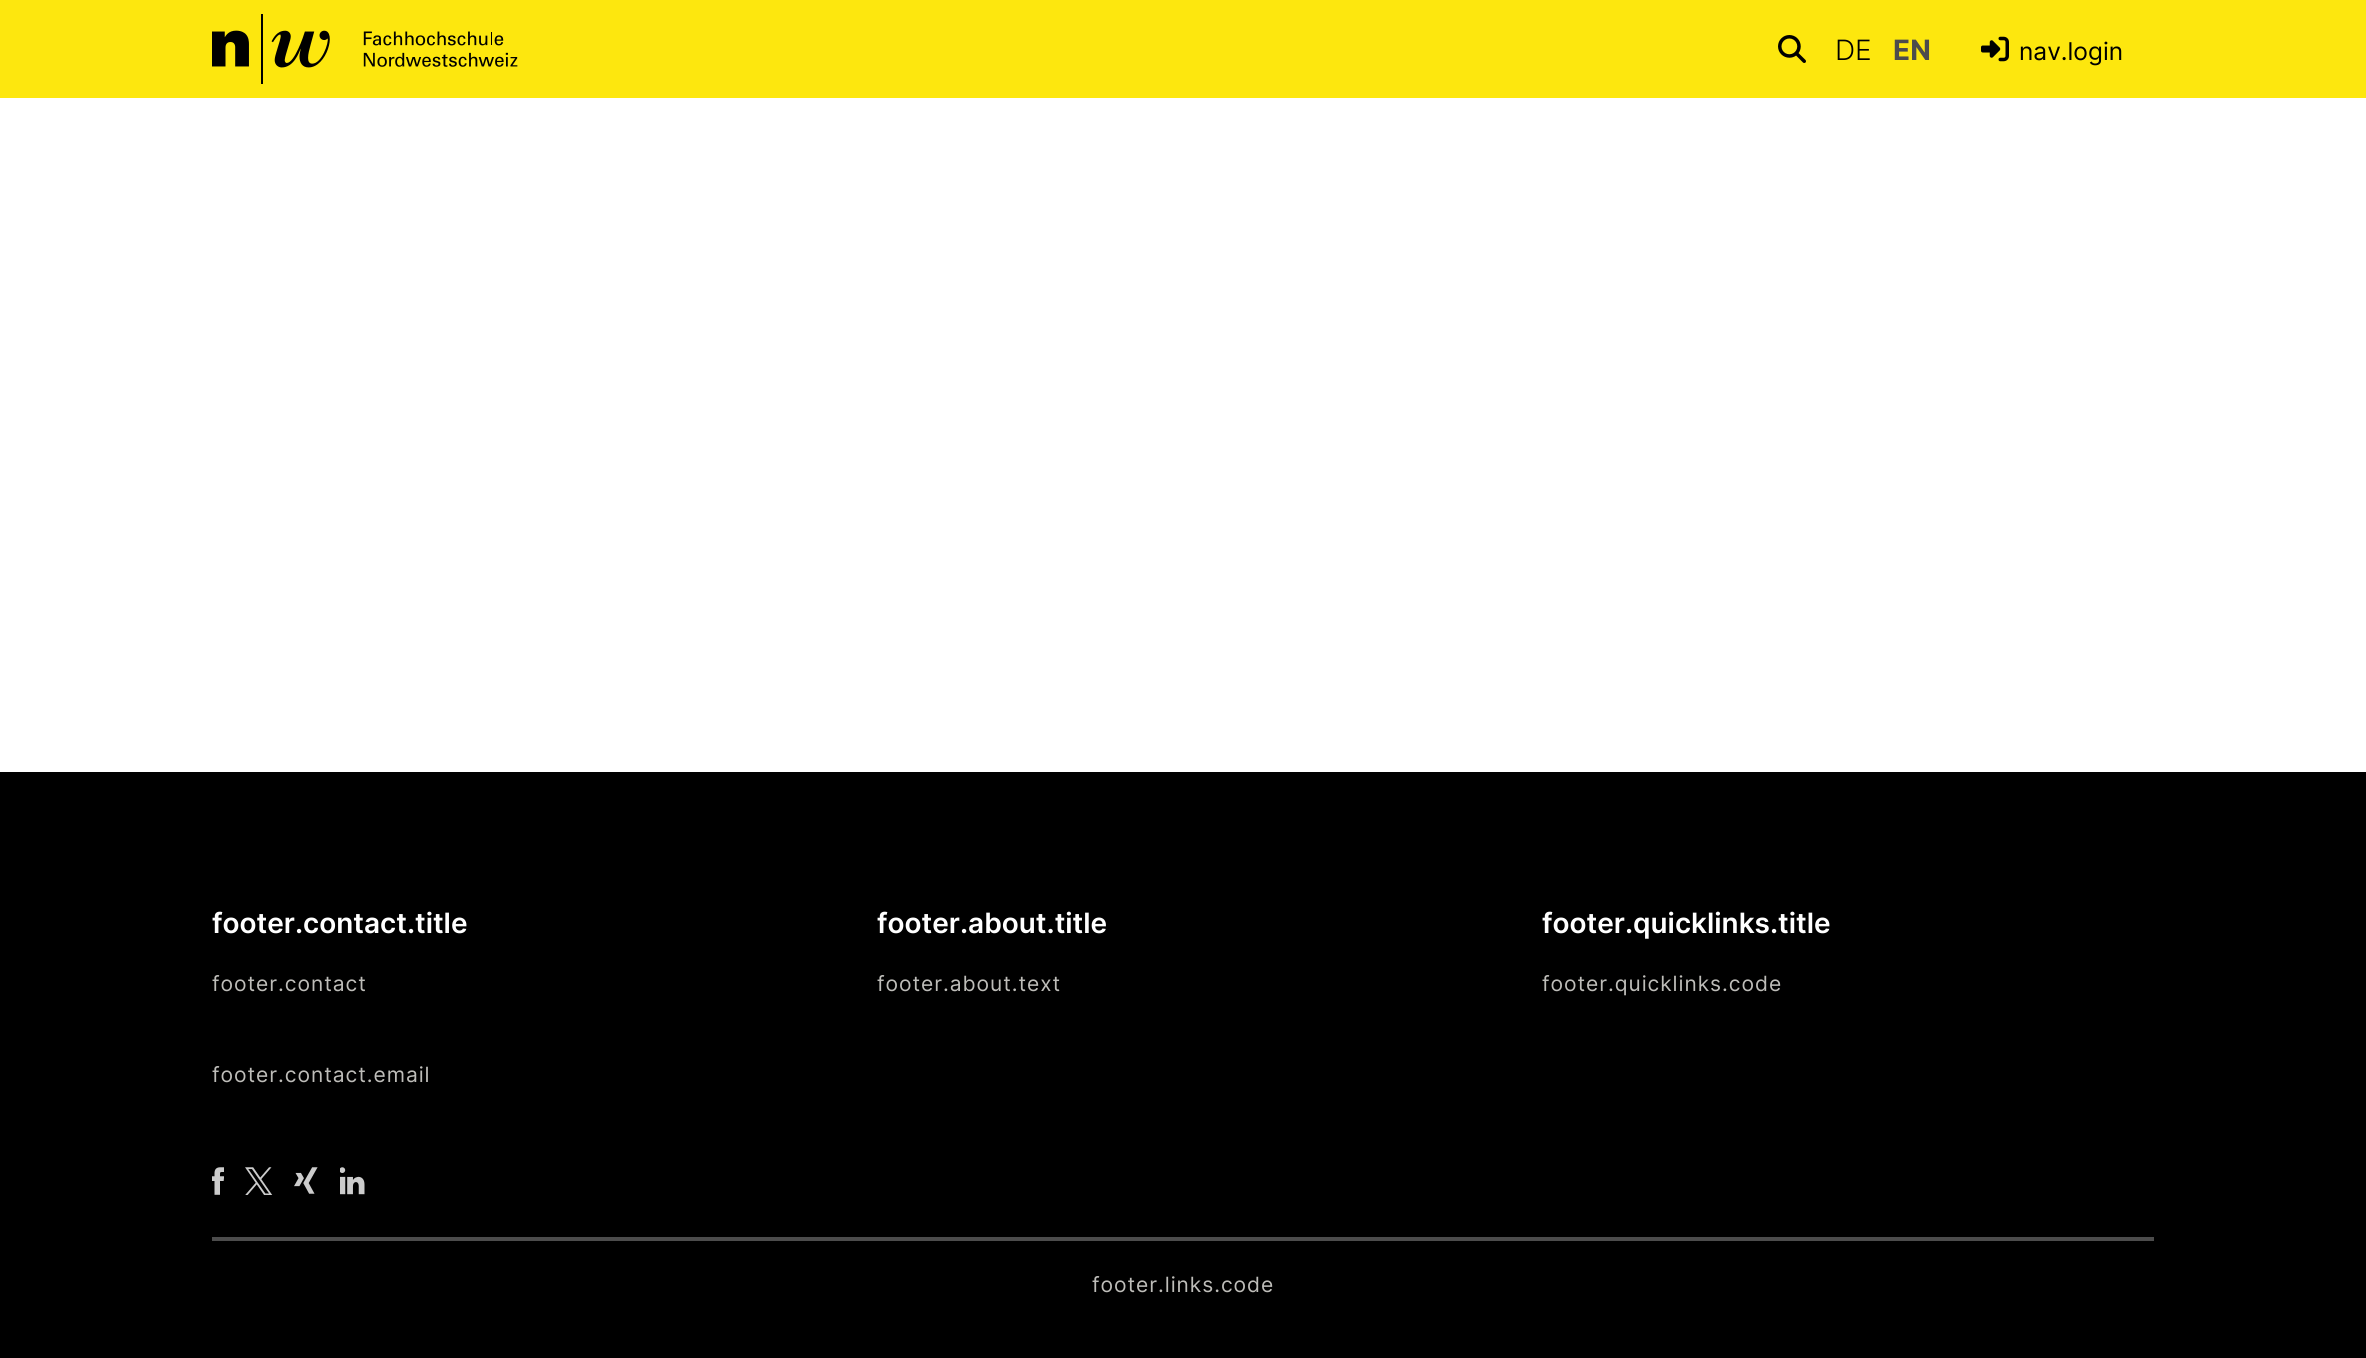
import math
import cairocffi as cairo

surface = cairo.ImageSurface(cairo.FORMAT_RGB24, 2366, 1358)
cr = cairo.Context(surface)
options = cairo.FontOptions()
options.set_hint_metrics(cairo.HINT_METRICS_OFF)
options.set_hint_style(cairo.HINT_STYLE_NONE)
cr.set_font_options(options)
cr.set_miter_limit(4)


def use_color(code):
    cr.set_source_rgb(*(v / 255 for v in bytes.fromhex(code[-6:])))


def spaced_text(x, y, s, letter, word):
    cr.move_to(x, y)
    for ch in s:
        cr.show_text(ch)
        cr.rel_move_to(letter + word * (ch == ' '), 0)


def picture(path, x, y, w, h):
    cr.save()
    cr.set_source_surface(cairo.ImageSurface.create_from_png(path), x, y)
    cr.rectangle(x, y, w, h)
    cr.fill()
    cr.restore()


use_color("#ffffff")
cr.paint()
use_color("#fde70e")
cr.rectangle(0, 0, 2366, 98)
cr.fill()
picture("img1.png", 212, 14, 306, 70)
picture("img2.png", 1778, 35, 28, 28)
cr.select_font_face("Inter Light")
cr.set_font_size(28)
use_color("#000000")
cr.move_to(1835, 60)
cr.show_text("DE")
cr.select_font_face("Inter", cairo.FONT_SLANT_NORMAL, cairo.FONT_WEIGHT_BOLD)
use_color("#4c4c4c")
cr.move_to(1893, 60)
cr.show_text("EN")
picture("img3.png", 1981, 36, 28, 26)
cr.select_font_face("Inter")
cr.set_font_size(24.5)
use_color("#000000")
cr.move_to(2019, 60)
cr.show_text("nav.login")
cr.rectangle(0, 772, 2366, 586)
cr.fill()
cr.select_font_face("Inter SemiBold")
cr.set_font_size(28)
use_color("#ffffff")
cr.move_to(212, 933)
cr.show_text("footer.contact.title")
cr.select_font_face("Inter")
cr.set_font_size(21)
use_color("#bebdb9")
spaced_text(212, 991, "footer.contact", 0.95, 0)
spaced_text(212, 1082, "footer.contact.email", 0.95, 0)
picture("img4.png", 212, 1167, 12, 28)
picture("img5.png", 245, 1167, 28, 28)
picture("img6.png", 294, 1167, 24, 27)
picture("img7.png", 340, 1167, 25, 28)
cr.select_font_face("Inter SemiBold")
cr.set_font_size(28)
use_color("#ffffff")
cr.move_to(877, 933)
cr.show_text("footer.about.title")
cr.select_font_face("Inter")
cr.set_font_size(21)
use_color("#bebdb9")
spaced_text(877, 991, "footer.about.text", 0.95, 0)
cr.select_font_face("Inter SemiBold")
cr.set_font_size(28)
use_color("#ffffff")
cr.move_to(1542, 933)
cr.show_text("footer.quicklinks.title")
cr.select_font_face("Inter")
cr.set_font_size(21)
use_color("#bebdb9")
spaced_text(1542, 991, "footer.quicklinks.code", 0.95, 0)
use_color("#4c4c4c")
cr.rectangle(212, 1237, 1942, 4)
cr.fill()
use_color("#bebdb9")
spaced_text(1092, 1292, "footer.links.code", 0.95, 0)
surface.write_to_png("result.png")
